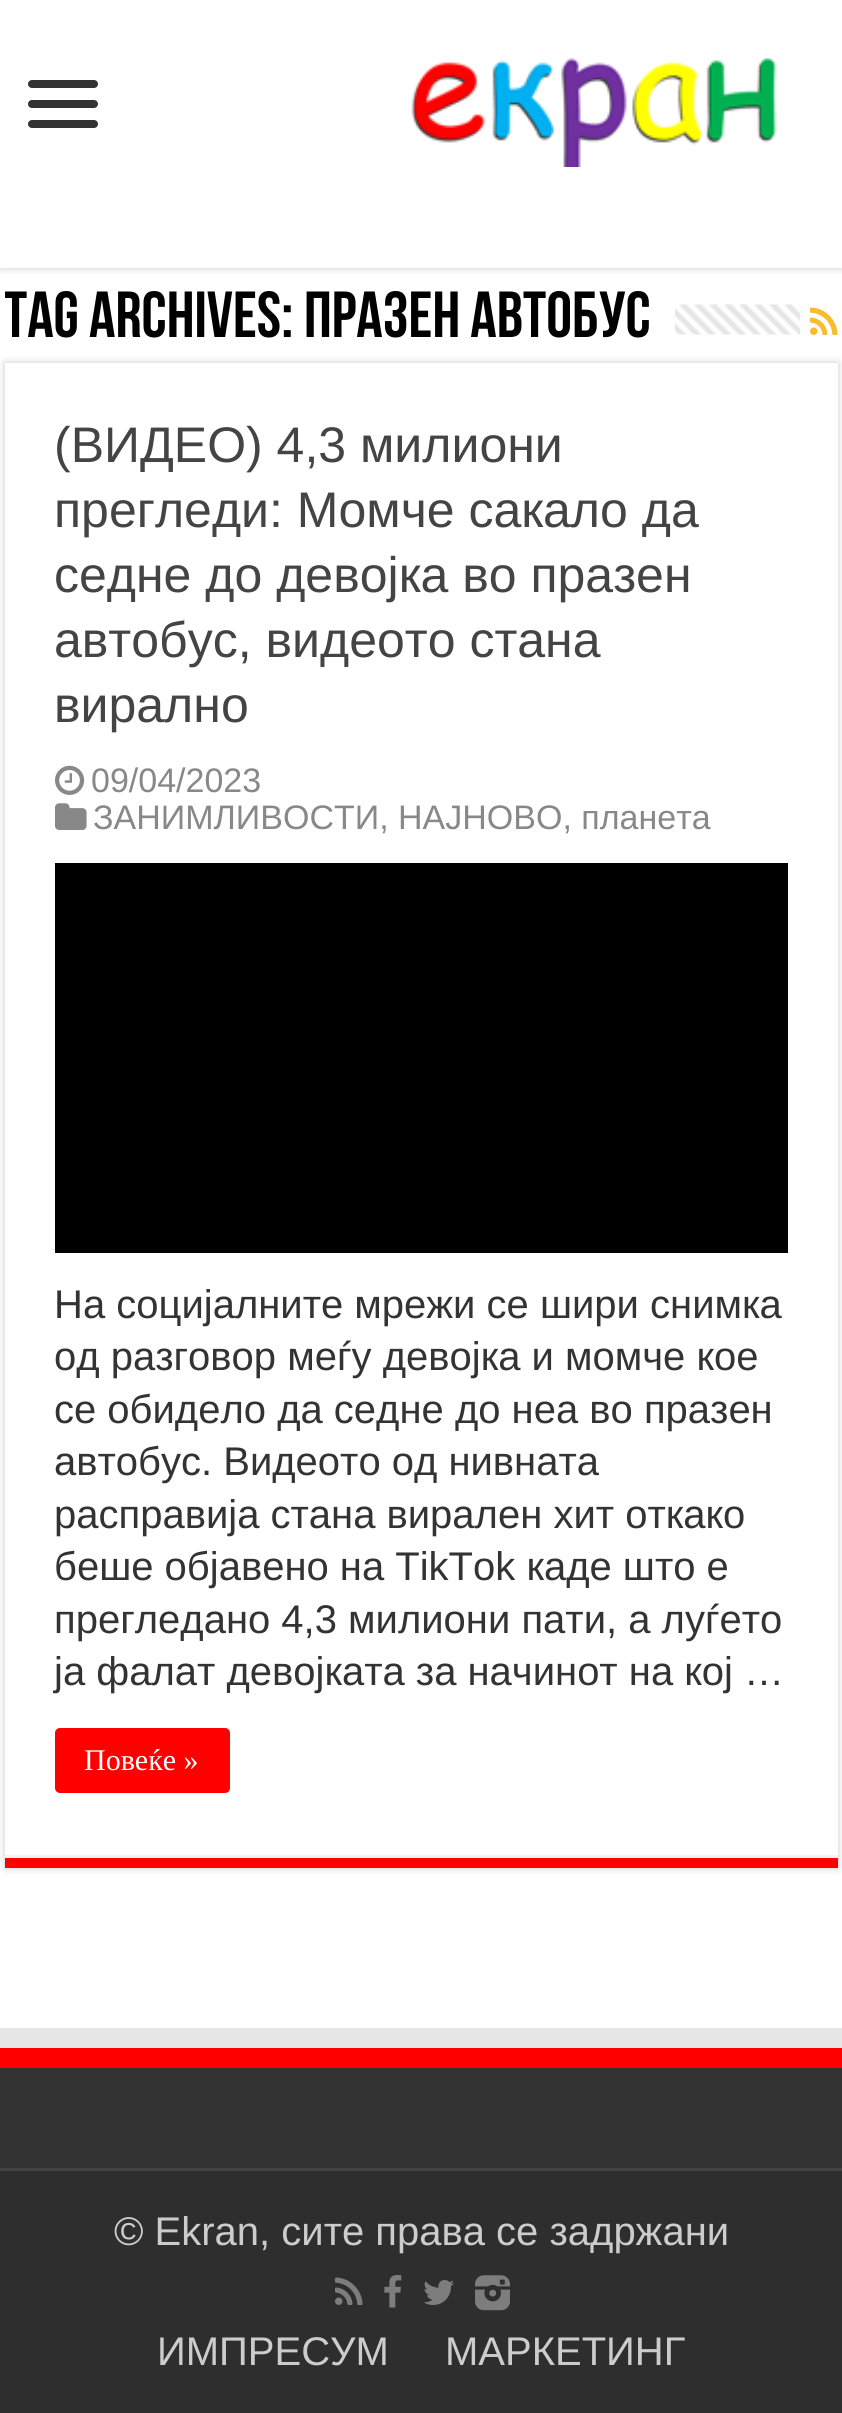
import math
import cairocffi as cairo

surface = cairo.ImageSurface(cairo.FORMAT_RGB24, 842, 2413)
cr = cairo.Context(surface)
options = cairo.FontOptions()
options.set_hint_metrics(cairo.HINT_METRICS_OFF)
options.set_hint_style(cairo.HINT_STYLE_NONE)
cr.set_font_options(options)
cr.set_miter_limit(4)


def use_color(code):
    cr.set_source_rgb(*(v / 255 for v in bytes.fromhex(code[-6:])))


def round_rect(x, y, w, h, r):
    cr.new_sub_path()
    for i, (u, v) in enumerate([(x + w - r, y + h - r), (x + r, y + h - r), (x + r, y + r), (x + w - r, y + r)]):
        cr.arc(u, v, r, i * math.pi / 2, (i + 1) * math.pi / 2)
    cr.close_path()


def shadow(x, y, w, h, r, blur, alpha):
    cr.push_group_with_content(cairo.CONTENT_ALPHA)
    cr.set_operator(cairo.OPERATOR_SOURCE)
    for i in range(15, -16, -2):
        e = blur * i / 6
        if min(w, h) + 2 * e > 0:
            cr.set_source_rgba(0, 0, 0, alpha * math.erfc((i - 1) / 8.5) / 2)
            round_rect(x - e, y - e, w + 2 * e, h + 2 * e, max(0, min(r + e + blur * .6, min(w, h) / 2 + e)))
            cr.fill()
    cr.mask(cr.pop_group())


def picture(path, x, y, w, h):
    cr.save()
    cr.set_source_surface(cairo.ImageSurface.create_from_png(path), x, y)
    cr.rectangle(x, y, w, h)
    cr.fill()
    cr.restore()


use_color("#ffffff")
cr.paint()
use_color("#cacaca")
shadow(0, -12, 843, 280, 0, 4, 1)
use_color("#ffffff")
cr.rectangle(0, 0, 842, 268)
cr.fill()
use_color("#333333")
round_rect(28, 80, 70, 8, 4)
cr.fill()
round_rect(28, 100, 70, 8, 4)
cr.fill()
round_rect(28, 120, 70, 8, 4)
cr.fill()
picture("img1.png", 411, 58, 366, 109)
cr.save()
cr.rectangle(5, 280, 833, 83)
cr.clip()
cr.select_font_face("Bebas Neue", cairo.FONT_SLANT_NORMAL, cairo.FONT_WEIGHT_BOLD)
cr.set_font_size(65)
use_color("#000000")
cr.move_to(4, 337)
cr.show_text("Tag Archives:")
cr.restore()
cr.select_font_face("Bebas Neue", cairo.FONT_SLANT_NORMAL, cairo.FONT_WEIGHT_BOLD)
cr.set_font_size(65)
use_color("#000000")
cr.move_to(304, 337)
cr.show_text("празен автобус")
picture("img2.png", 675, 304, 125, 31)
picture("img3.png", 810, 307, 28, 28)
use_color("#cacaca")
shadow(5, 363, 833, 1505, 0, 4, 1)
use_color("#ffffff")
cr.rectangle(5, 363, 833, 1492)
cr.fill()
use_color("#ff0000")
cr.rectangle(5, 1858, 833, 10)
cr.fill()
use_color("#f2f2f2")
cr.rectangle(5, 1855, 833, 3)
cr.fill()
cr.select_font_face("Liberation Sans")
cr.set_font_size(50)
use_color("#444444")
cr.move_to(54, 462)
cr.show_text("(ВИДЕО) 4,3 милиони")
cr.move_to(54, 527)
cr.show_text("прегледи: Момче сакало да")
cr.move_to(54, 592)
cr.show_text("седне до девојка во празен")
cr.move_to(54, 657)
cr.show_text("автобус, видеото стана")
cr.move_to(54, 722)
cr.show_text("вирално")
picture("img4.png", 55, 765, 30, 30)
cr.set_font_size(34)
use_color("#888888")
cr.move_to(91, 792)
cr.show_text("09/04/2023")
picture("img5.png", 55, 803, 32, 27)
cr.move_to(93, 829)
cr.show_text("ЗАНИМЛИВОСТИ, НАЈНОВО, планета")
use_color("#000000")
cr.rectangle(55, 863, 733, 390)
cr.fill()
cr.set_font_size(40)
use_color("#333333")
cr.move_to(54, 1318)
cr.show_text("На социјалните мрежи се шири снимка")
cr.move_to(54, 1370)
cr.show_text("од разговор меѓу девојка и момче кое")
cr.move_to(54, 1423)
cr.show_text("се обидело да седне до неа во празен")
cr.move_to(54, 1475)
cr.show_text("автобус. Видеото од нивната")
cr.move_to(54, 1528)
cr.show_text("расправија стана вирален хит откако")
cr.move_to(54, 1580)
cr.show_text("беше објавено на TikTok каде што е")
cr.move_to(54, 1633)
cr.show_text("прегледано 4,3 милиони пати, а луѓето")
cr.move_to(54, 1685)
cr.show_text("ја фалат девојката за начинот на кој …")
use_color("#ff0000")
round_rect(55, 1728, 175, 65, 5)
cr.fill()
cr.select_font_face("Liberation Serif")
cr.set_font_size(30)
use_color("#ffffff")
cr.move_to(84, 1770)
cr.show_text("Повеќе »")
use_color("#e6e6e6")
cr.new_path()
cr.move_to(0, 2028)
cr.line_to(0, 2048)
cr.line_to(842, 2048)
cr.line_to(842, 2148)
cr.line_to(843, 2148)
cr.line_to(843, 2028)
cr.close_path()
cr.fill()
use_color("#333333")
cr.rectangle(0, 2068, 842, 100)
cr.fill()
use_color("#ff0000")
cr.rectangle(0, 2048, 842, 20)
cr.fill()
use_color("#2e2e2e")
cr.rectangle(0, 2171, 842, 242)
cr.fill()
use_color("#444444")
cr.rectangle(0, 2168, 842, 3)
cr.fill()
cr.select_font_face("Liberation Sans")
cr.set_font_size(40)
use_color("#cccccc")
cr.move_to(114, 2245)
cr.show_text("© Ekran, сите права се задржани")
picture("img6.png", 335, 2277, 28, 28)
picture("img7.png", 384, 2275, 18, 33)
picture("img8.png", 423, 2280, 31, 25)
picture("img9.png", 475, 2275, 35, 36)
cr.move_to(157, 2365)
cr.show_text("ИМПРЕСУМ")
cr.move_to(445, 2365)
cr.show_text("МАРКЕТИНГ")
surface.write_to_png("result.png")
